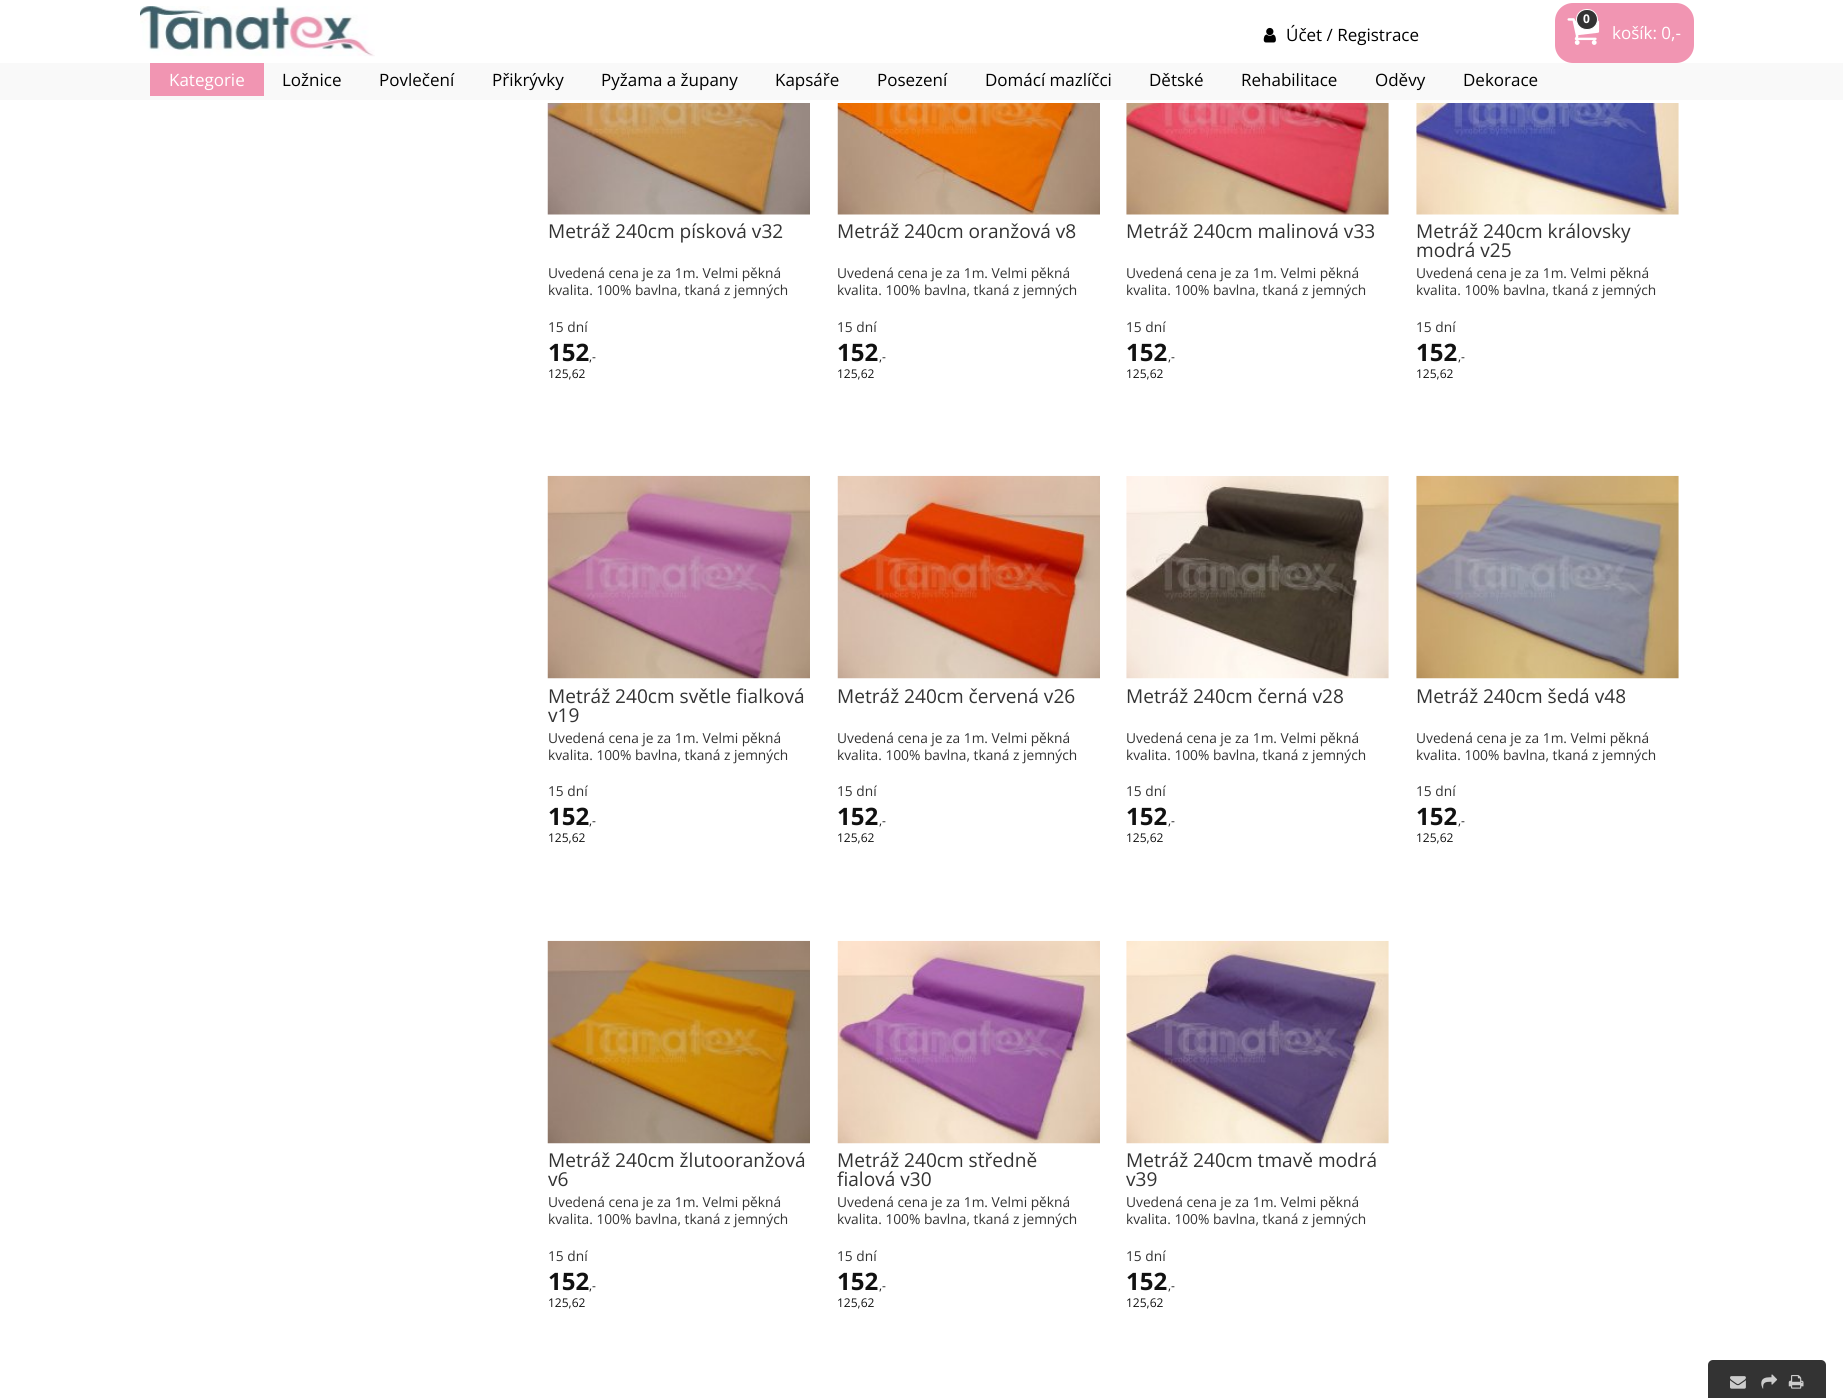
import math
import cairocffi as cairo

surface = cairo.ImageSurface(cairo.FORMAT_RGB24, 1843, 1398)
cr = cairo.Context(surface)
options = cairo.FontOptions()
options.set_hint_metrics(cairo.HINT_METRICS_OFF)
options.set_hint_style(cairo.HINT_STYLE_NONE)
cr.set_font_options(options)
cr.set_miter_limit(4)


def use_color(code):
    cr.set_source_rgb(*(v / 255 for v in bytes.fromhex(code[-6:])))


def round_rect(x, y, w, h, r):
    cr.new_sub_path()
    for i, (u, v) in enumerate([(x + w - r, y + h - r), (x + r, y + h - r), (x + r, y + r), (x + w - r, y + r)]):
        cr.arc(u, v, r, i * math.pi / 2, (i + 1) * math.pi / 2)
    cr.close_path()


def picture(path, x, y, w, h):
    cr.save()
    cr.set_source_surface(cairo.ImageSurface.create_from_png(path), x, y)
    cr.rectangle(x, y, w, h)
    cr.fill()
    cr.restore()


use_color("#ffffff")
cr.paint()
use_color("#f9f9f9")
cr.rectangle(0, 63, 1843, 37)
cr.fill()
picture("img1.png", 140, 6, 235, 51)
picture("img2.png", 1263, 27, 13, 16)
cr.select_font_face("Open Sans")
cr.set_font_size(17)
use_color("#000000")
cr.move_to(1286, 41)
cr.show_text("Účet / Registrace")
use_color("#f195b2")
round_rect(1555, 3, 139, 60, 18)
cr.fill()
picture("img3.png", 1567, 18, 33, 27)
use_color("#333333")
round_rect(1576.5, 9.5, 21, 20, 10)
cr.fill_preserve()
use_color("#ffffff")
cr.set_line_width(1)
cr.stroke()
cr.select_font_face("Open Sans", cairo.FONT_SLANT_NORMAL, cairo.FONT_WEIGHT_BOLD)
cr.set_font_size(12)
cr.move_to(1583, 23)
cr.show_text("0")
cr.select_font_face("Open Sans")
cr.set_font_size(17)
cr.move_to(1612, 39)
cr.show_text("košík: 0,-")
use_color("#f195b2")
cr.rectangle(150, 63, 114, 33)
cr.fill()
use_color("#ffffff")
cr.move_to(169, 86)
cr.show_text("Kategorie")
use_color("#000000")
cr.move_to(282, 86)
cr.show_text("Ložnice")
cr.move_to(379, 86)
cr.show_text("Povlečení")
cr.move_to(492, 86)
cr.show_text("Přikrývky")
cr.move_to(601, 86)
cr.show_text("Pyžama a župany")
cr.move_to(775, 86)
cr.show_text("Kapsáře")
cr.move_to(877, 86)
cr.show_text("Posezení")
cr.move_to(985, 86)
cr.show_text("Domácí mazlíčci")
cr.move_to(1149, 86)
cr.show_text("Dětské")
cr.move_to(1241, 86)
cr.show_text("Rehabilitace")
cr.move_to(1375, 86)
cr.show_text("Oděvy")
cr.move_to(1463, 86)
cr.show_text("Dekorace")
picture("img4.png", 547, 103, 263, 112)
cr.set_font_size(19.1)
use_color("#333333")
cr.move_to(548, 238)
cr.show_text("Metráž 240cm písková v32")
cr.set_font_size(13.75)
cr.move_to(548, 278)
cr.show_text("Uvedená cena je za 1m. Velmi pěkná")
cr.move_to(548, 295)
cr.show_text("kvalita. 100% bavlna, tkaná z jemných")
cr.move_to(548, 332)
cr.show_text("15 dní")
cr.select_font_face("Open Sans", cairo.FONT_SLANT_NORMAL, cairo.FONT_WEIGHT_BOLD)
cr.set_font_size(24)
use_color("#111111")
cr.move_to(548, 361)
cr.show_text("152")
cr.select_font_face("Open Sans")
cr.set_font_size(12)
cr.move_to(589, 361)
cr.show_text(",-")
cr.move_to(548, 378)
cr.show_text("125,62")
picture("img5.png", 837, 103, 263, 112)
cr.set_font_size(19.1)
use_color("#333333")
cr.move_to(837, 238)
cr.show_text("Metráž 240cm oranžová v8")
cr.set_font_size(13.75)
cr.move_to(837, 278)
cr.show_text("Uvedená cena je za 1m. Velmi pěkná")
cr.move_to(837, 295)
cr.show_text("kvalita. 100% bavlna, tkaná z jemných")
cr.move_to(837, 332)
cr.show_text("15 dní")
cr.select_font_face("Open Sans", cairo.FONT_SLANT_NORMAL, cairo.FONT_WEIGHT_BOLD)
cr.set_font_size(24)
use_color("#111111")
cr.move_to(837, 361)
cr.show_text("152")
cr.select_font_face("Open Sans")
cr.set_font_size(12)
cr.move_to(879, 361)
cr.show_text(",-")
cr.move_to(837, 378)
cr.show_text("125,62")
picture("img6.png", 1126, 103, 263, 112)
cr.set_font_size(19.1)
use_color("#333333")
cr.move_to(1126, 238)
cr.show_text("Metráž 240cm malinová v33")
cr.set_font_size(13.75)
cr.move_to(1126, 278)
cr.show_text("Uvedená cena je za 1m. Velmi pěkná")
cr.move_to(1126, 295)
cr.show_text("kvalita. 100% bavlna, tkaná z jemných")
cr.move_to(1126, 332)
cr.show_text("15 dní")
cr.select_font_face("Open Sans", cairo.FONT_SLANT_NORMAL, cairo.FONT_WEIGHT_BOLD)
cr.set_font_size(24)
use_color("#111111")
cr.move_to(1126, 361)
cr.show_text("152")
cr.select_font_face("Open Sans")
cr.set_font_size(12)
cr.move_to(1168, 361)
cr.show_text(",-")
cr.move_to(1126, 378)
cr.show_text("125,62")
picture("img7.png", 1416, 103, 263, 112)
cr.set_font_size(19.1)
use_color("#333333")
cr.move_to(1416, 238)
cr.show_text("Metráž 240cm královsky")
cr.move_to(1416, 257)
cr.show_text("modrá v25")
cr.set_font_size(13.75)
cr.move_to(1416, 278)
cr.show_text("Uvedená cena je za 1m. Velmi pěkná")
cr.move_to(1416, 295)
cr.show_text("kvalita. 100% bavlna, tkaná z jemných")
cr.move_to(1416, 332)
cr.show_text("15 dní")
cr.select_font_face("Open Sans", cairo.FONT_SLANT_NORMAL, cairo.FONT_WEIGHT_BOLD)
cr.set_font_size(24)
use_color("#111111")
cr.move_to(1416, 361)
cr.show_text("152")
cr.select_font_face("Open Sans")
cr.set_font_size(12)
cr.move_to(1458, 361)
cr.show_text(",-")
cr.move_to(1416, 378)
cr.show_text("125,62")
picture("img8.png", 547, 475, 263, 204)
cr.set_font_size(19.1)
use_color("#333333")
cr.move_to(548, 703)
cr.show_text("Metráž 240cm světle fialková")
cr.move_to(548, 722)
cr.show_text("v19")
cr.set_font_size(13.75)
cr.move_to(548, 743)
cr.show_text("Uvedená cena je za 1m. Velmi pěkná")
cr.move_to(548, 760)
cr.show_text("kvalita. 100% bavlna, tkaná z jemných")
cr.move_to(548, 796)
cr.show_text("15 dní")
cr.select_font_face("Open Sans", cairo.FONT_SLANT_NORMAL, cairo.FONT_WEIGHT_BOLD)
cr.set_font_size(24)
use_color("#111111")
cr.move_to(548, 825)
cr.show_text("152")
cr.select_font_face("Open Sans")
cr.set_font_size(12)
cr.move_to(589, 825)
cr.show_text(",-")
cr.move_to(548, 842)
cr.show_text("125,62")
picture("img9.png", 837, 475, 263, 204)
cr.set_font_size(19.1)
use_color("#333333")
cr.move_to(837, 703)
cr.show_text("Metráž 240cm červená v26")
cr.set_font_size(13.75)
cr.move_to(837, 743)
cr.show_text("Uvedená cena je za 1m. Velmi pěkná")
cr.move_to(837, 760)
cr.show_text("kvalita. 100% bavlna, tkaná z jemných")
cr.move_to(837, 796)
cr.show_text("15 dní")
cr.select_font_face("Open Sans", cairo.FONT_SLANT_NORMAL, cairo.FONT_WEIGHT_BOLD)
cr.set_font_size(24)
use_color("#111111")
cr.move_to(837, 825)
cr.show_text("152")
cr.select_font_face("Open Sans")
cr.set_font_size(12)
cr.move_to(879, 825)
cr.show_text(",-")
cr.move_to(837, 842)
cr.show_text("125,62")
picture("img10.png", 1126, 476, 263, 203)
cr.set_font_size(19.1)
use_color("#333333")
cr.move_to(1126, 703)
cr.show_text("Metráž 240cm černá v28")
cr.set_font_size(13.75)
cr.move_to(1126, 743)
cr.show_text("Uvedená cena je za 1m. Velmi pěkná")
cr.move_to(1126, 760)
cr.show_text("kvalita. 100% bavlna, tkaná z jemných")
cr.move_to(1126, 796)
cr.show_text("15 dní")
cr.select_font_face("Open Sans", cairo.FONT_SLANT_NORMAL, cairo.FONT_WEIGHT_BOLD)
cr.set_font_size(24)
use_color("#111111")
cr.move_to(1126, 825)
cr.show_text("152")
cr.select_font_face("Open Sans")
cr.set_font_size(12)
cr.move_to(1168, 825)
cr.show_text(",-")
cr.move_to(1126, 842)
cr.show_text("125,62")
picture("img11.png", 1416, 475, 263, 204)
cr.set_font_size(19.1)
use_color("#333333")
cr.move_to(1416, 703)
cr.show_text("Metráž 240cm šedá v48")
cr.set_font_size(13.75)
cr.move_to(1416, 743)
cr.show_text("Uvedená cena je za 1m. Velmi pěkná")
cr.move_to(1416, 760)
cr.show_text("kvalita. 100% bavlna, tkaná z jemných")
cr.move_to(1416, 796)
cr.show_text("15 dní")
cr.select_font_face("Open Sans", cairo.FONT_SLANT_NORMAL, cairo.FONT_WEIGHT_BOLD)
cr.set_font_size(24)
use_color("#111111")
cr.move_to(1416, 825)
cr.show_text("152")
cr.select_font_face("Open Sans")
cr.set_font_size(12)
cr.move_to(1458, 825)
cr.show_text(",-")
cr.move_to(1416, 842)
cr.show_text("125,62")
picture("img12.png", 547, 940, 263, 204)
cr.set_font_size(19.1)
use_color("#333333")
cr.move_to(548, 1167)
cr.show_text("Metráž 240cm žlutooranžová")
cr.move_to(548, 1186)
cr.show_text("v6")
cr.set_font_size(13.75)
cr.move_to(548, 1207)
cr.show_text("Uvedená cena je za 1m. Velmi pěkná")
cr.move_to(548, 1224)
cr.show_text("kvalita. 100% bavlna, tkaná z jemných")
cr.move_to(548, 1261)
cr.show_text("15 dní")
cr.select_font_face("Open Sans", cairo.FONT_SLANT_NORMAL, cairo.FONT_WEIGHT_BOLD)
cr.set_font_size(24)
use_color("#111111")
cr.move_to(548, 1290)
cr.show_text("152")
cr.select_font_face("Open Sans")
cr.set_font_size(12)
cr.move_to(589, 1290)
cr.show_text(",-")
cr.move_to(548, 1307)
cr.show_text("125,62")
picture("img13.png", 837, 940, 263, 204)
cr.set_font_size(19.1)
use_color("#333333")
cr.move_to(837, 1167)
cr.show_text("Metráž 240cm středně")
cr.move_to(837, 1186)
cr.show_text("fialová v30")
cr.set_font_size(13.75)
cr.move_to(837, 1207)
cr.show_text("Uvedená cena je za 1m. Velmi pěkná")
cr.move_to(837, 1224)
cr.show_text("kvalita. 100% bavlna, tkaná z jemných")
cr.move_to(837, 1261)
cr.show_text("15 dní")
cr.select_font_face("Open Sans", cairo.FONT_SLANT_NORMAL, cairo.FONT_WEIGHT_BOLD)
cr.set_font_size(24)
use_color("#111111")
cr.move_to(837, 1290)
cr.show_text("152")
cr.select_font_face("Open Sans")
cr.set_font_size(12)
cr.move_to(879, 1290)
cr.show_text(",-")
cr.move_to(837, 1307)
cr.show_text("125,62")
picture("img14.png", 1126, 940, 263, 204)
cr.set_font_size(19.1)
use_color("#333333")
cr.move_to(1126, 1167)
cr.show_text("Metráž 240cm tmavě modrá")
cr.move_to(1126, 1186)
cr.show_text("v39")
cr.set_font_size(13.75)
cr.move_to(1126, 1207)
cr.show_text("Uvedená cena je za 1m. Velmi pěkná")
cr.move_to(1126, 1224)
cr.show_text("kvalita. 100% bavlna, tkaná z jemných")
cr.move_to(1126, 1261)
cr.show_text("15 dní")
cr.select_font_face("Open Sans", cairo.FONT_SLANT_NORMAL, cairo.FONT_WEIGHT_BOLD)
cr.set_font_size(24)
use_color("#111111")
cr.move_to(1126, 1290)
cr.show_text("152")
cr.select_font_face("Open Sans")
cr.set_font_size(12)
cr.move_to(1168, 1290)
cr.show_text(",-")
cr.move_to(1126, 1307)
cr.show_text("125,62")
use_color("#333333")
round_rect(1708, 1360, 118, 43, 5)
cr.fill()
picture("img15.png", 1730, 1376, 16, 13)
picture("img16.png", 1761, 1374, 17, 15)
picture("img17.png", 1788, 1375, 16, 14)
surface.write_to_png("result.png")
